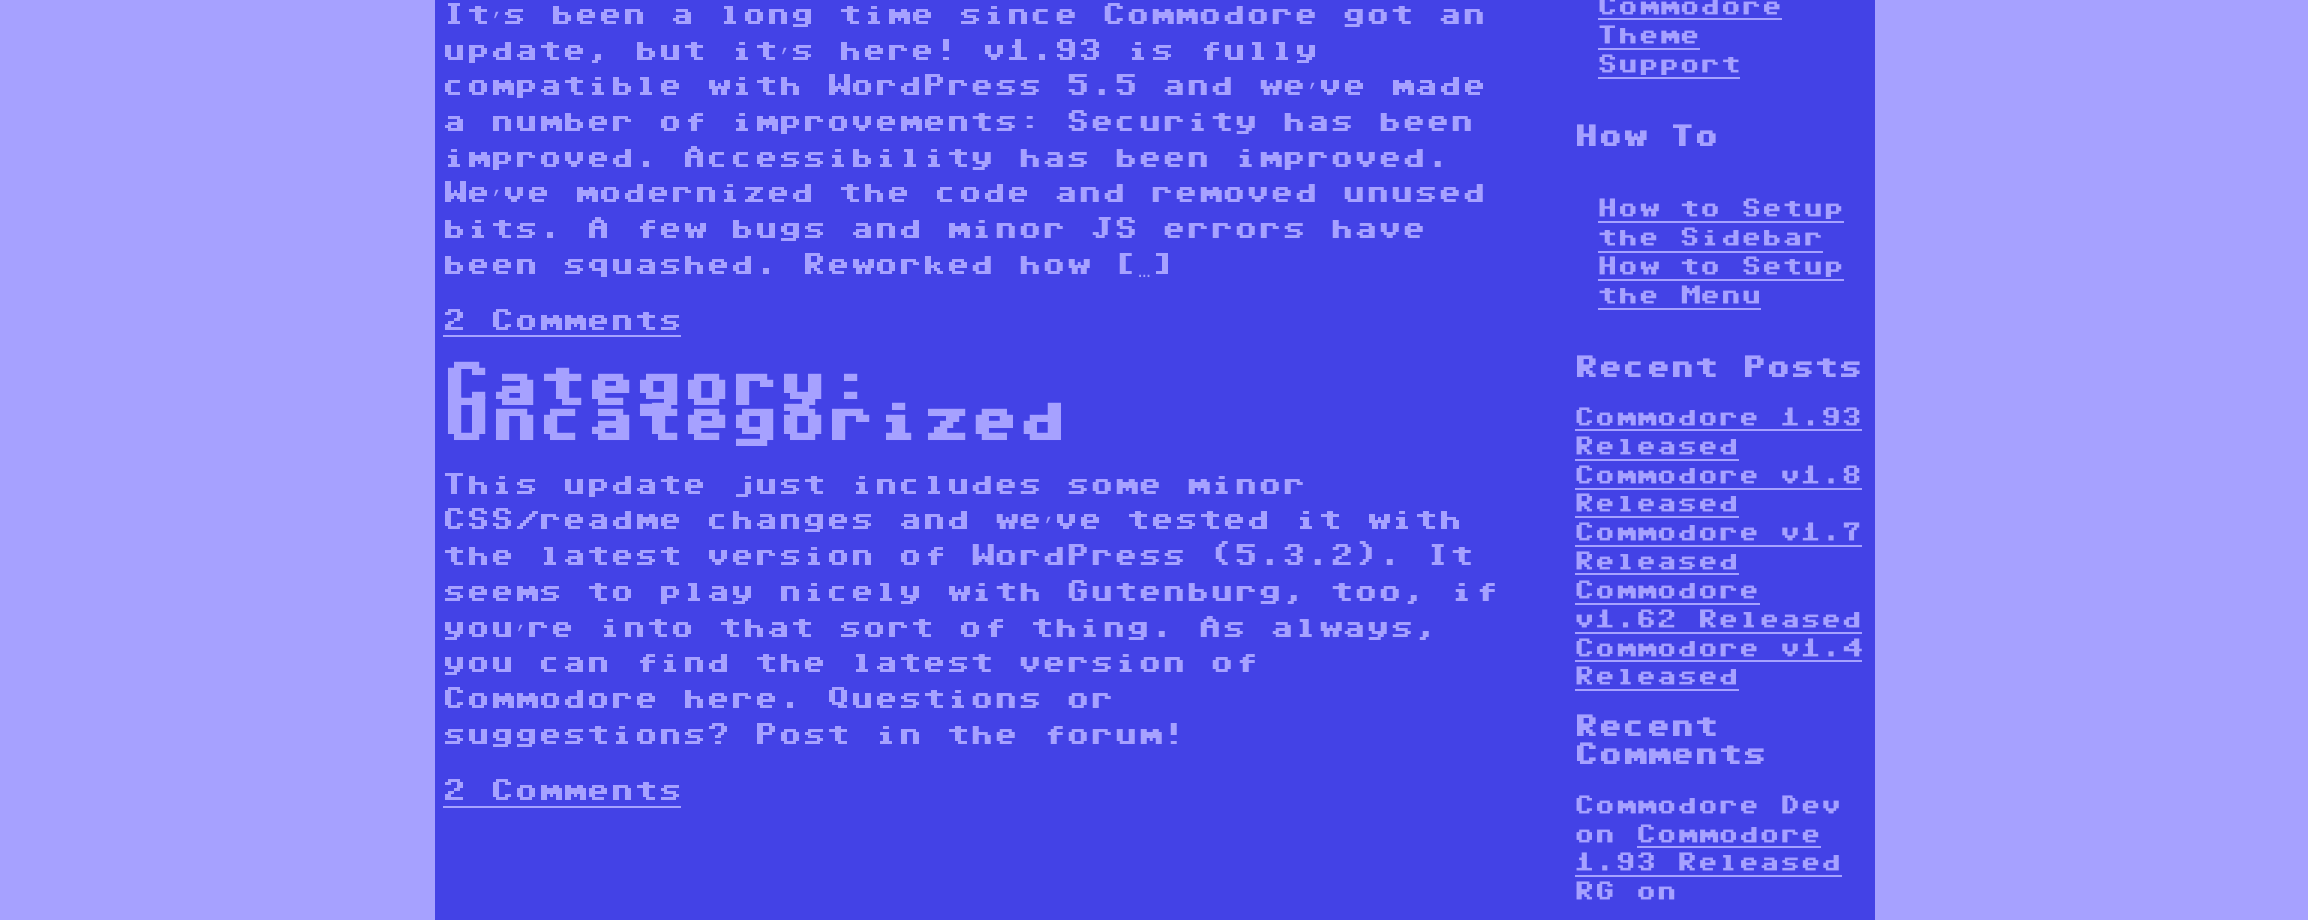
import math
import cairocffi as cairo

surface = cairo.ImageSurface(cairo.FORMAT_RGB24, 2308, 920)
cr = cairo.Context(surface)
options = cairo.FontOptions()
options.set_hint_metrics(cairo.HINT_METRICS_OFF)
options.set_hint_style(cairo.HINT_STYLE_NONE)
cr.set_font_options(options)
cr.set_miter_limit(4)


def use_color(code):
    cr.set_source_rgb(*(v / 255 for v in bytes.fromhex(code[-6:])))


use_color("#a6a1ff")
cr.paint()
use_color("#4342e6")
cr.rectangle(435, 0, 1440, 920)
cr.fill()
cr.select_font_face("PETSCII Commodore")
cr.set_font_size(21)
use_color("#a6a1ff")
cr.move_to(442, 27)
cr.show_text("It")
cr.select_font_face("Liberation Mono")
cr.move_to(490, 27)
cr.show_text("’")
cr.select_font_face("PETSCII Commodore")
cr.move_to(502, 27)
cr.show_text("s been a long time since Commodore got an")
cr.move_to(442, 63)
cr.show_text("update, but it")
cr.select_font_face("Liberation Mono")
cr.move_to(778, 63)
cr.show_text("’")
cr.select_font_face("PETSCII Commodore")
cr.move_to(790, 63)
cr.show_text("s here! v1.93 is fully")
cr.move_to(442, 98)
cr.show_text("compatible with WordPress 5.5 and we")
cr.select_font_face("Liberation Mono")
cr.move_to(1306, 98)
cr.show_text("’")
cr.select_font_face("PETSCII Commodore")
cr.move_to(1318, 98)
cr.show_text("ve made")
cr.move_to(442, 134)
cr.show_text("a number of improvements: Security has been")
cr.move_to(442, 170)
cr.show_text("improved. Accessibility has been improved.")
cr.move_to(442, 205)
cr.show_text("We")
cr.select_font_face("Liberation Mono")
cr.move_to(490, 205)
cr.show_text("’")
cr.select_font_face("PETSCII Commodore")
cr.move_to(502, 205)
cr.show_text("ve modernized the code and removed unused")
cr.move_to(442, 241)
cr.show_text("bits. A few bugs and minor JS errors have")
cr.move_to(442, 277)
cr.show_text("been squashed. Reworked how [")
cr.move_to(1150, 277)
cr.show_text("]")
cr.select_font_face("Liberation Mono")
cr.move_to(1138, 277)
cr.show_text("…")
cr.select_font_face("PETSCII Commodore")
cr.move_to(442, 333)
cr.show_text("2 Comments")
cr.rectangle(443, 335, 238, 2)
cr.fill()
cr.select_font_face("PETSCII Commodore", cairo.FONT_SLANT_NORMAL, cairo.FONT_WEIGHT_BOLD)
cr.set_font_size(42)
cr.move_to(442, 411)
cr.show_text("Category:")
cr.move_to(442, 446)
cr.show_text("Uncategorized")
cr.select_font_face("PETSCII Commodore")
cr.set_font_size(21)
cr.move_to(442, 497)
cr.show_text("This update just includes some minor")
cr.move_to(442, 532)
cr.show_text("CSS/readme changes and we")
cr.select_font_face("Liberation Mono")
cr.move_to(1042, 532)
cr.show_text("’")
cr.select_font_face("PETSCII Commodore")
cr.move_to(1054, 532)
cr.show_text("ve tested it with")
cr.move_to(442, 568)
cr.show_text("the latest version of WordPress (5.3.2). It")
cr.move_to(442, 604)
cr.show_text("seems to play nicely with Gutenburg, too, if")
cr.move_to(442, 640)
cr.show_text("you")
cr.select_font_face("Liberation Mono")
cr.move_to(514, 640)
cr.show_text("’")
cr.select_font_face("PETSCII Commodore")
cr.move_to(526, 640)
cr.show_text("re into that sort of thing. As always,")
cr.move_to(442, 675)
cr.show_text("you can find the latest version of")
cr.move_to(442, 711)
cr.show_text("Commodore here. Questions or")
cr.move_to(442, 747)
cr.show_text("suggestions? Post in the forum!")
cr.move_to(442, 803)
cr.show_text("2 Comments")
cr.rectangle(443, 806, 238, 2)
cr.fill()
cr.set_font_size(18)
cr.move_to(1597, 17)
cr.show_text("Commodore")
cr.rectangle(1598, 18, 184, 2)
cr.fill()
cr.move_to(1597, 46)
cr.show_text("Theme")
cr.rectangle(1598, 48, 102, 2)
cr.fill()
cr.move_to(1597, 75)
cr.show_text("Support")
cr.rectangle(1598, 77, 142, 2)
cr.fill()
cr.select_font_face("PETSCII Commodore", cairo.FONT_SLANT_NORMAL, cairo.FONT_WEIGHT_BOLD)
cr.set_font_size(21)
cr.move_to(1574, 149)
cr.show_text("How To")
cr.select_font_face("PETSCII Commodore")
cr.set_font_size(18)
cr.move_to(1597, 219)
cr.show_text("How to Setup")
cr.rectangle(1598, 221, 246, 2)
cr.fill()
cr.move_to(1597, 248)
cr.show_text("the Sidebar")
cr.rectangle(1598, 251, 225, 2)
cr.fill()
cr.move_to(1597, 277)
cr.show_text("How to Setup")
cr.rectangle(1598, 279, 246, 2)
cr.fill()
cr.move_to(1597, 306)
cr.show_text("the Menu")
cr.rectangle(1598, 308, 163, 2)
cr.fill()
cr.select_font_face("PETSCII Commodore", cairo.FONT_SLANT_NORMAL, cairo.FONT_WEIGHT_BOLD)
cr.set_font_size(21)
cr.move_to(1574, 380)
cr.show_text("Recent Posts")
cr.select_font_face("PETSCII Commodore")
cr.set_font_size(18)
cr.move_to(1574, 428)
cr.show_text("Commodore 1.93")
cr.rectangle(1575, 429, 287, 2)
cr.fill()
cr.move_to(1574, 457)
cr.show_text("Released")
cr.rectangle(1575, 459, 164, 2)
cr.fill()
cr.move_to(1574, 486)
cr.show_text("Commodore v1.8")
cr.move_to(1574, 514)
cr.show_text("Released")
cr.rectangle(1575, 488, 287, 2)
cr.fill()
cr.rectangle(1575, 516, 164, 2)
cr.fill()
cr.move_to(1574, 543)
cr.show_text("Commodore v1.7")
cr.rectangle(1575, 545, 287, 2)
cr.fill()
cr.move_to(1574, 572)
cr.show_text("Released")
cr.rectangle(1575, 573, 164, 2)
cr.fill()
cr.move_to(1574, 601)
cr.show_text("Commodore")
cr.rectangle(1575, 603, 185, 2)
cr.fill()
cr.move_to(1574, 630)
cr.show_text("v1.62 Released")
cr.rectangle(1575, 632, 287, 2)
cr.fill()
cr.move_to(1574, 659)
cr.show_text("Commodore v1.4")
cr.rectangle(1575, 660, 287, 2)
cr.fill()
cr.move_to(1574, 687)
cr.show_text("Released")
cr.rectangle(1575, 689, 164, 2)
cr.fill()
cr.select_font_face("PETSCII Commodore", cairo.FONT_SLANT_NORMAL, cairo.FONT_WEIGHT_BOLD)
cr.set_font_size(21)
cr.move_to(1574, 739)
cr.show_text("Recent")
cr.move_to(1574, 767)
cr.show_text("Comments")
cr.select_font_face("PETSCII Commodore")
cr.set_font_size(18)
cr.move_to(1574, 816)
cr.show_text("Commodore Dev")
cr.move_to(1574, 845)
cr.show_text("on Commodore")
cr.move_to(1574, 873)
cr.show_text("1.93 Released")
cr.rectangle(1637, 846, 184, 2)
cr.fill()
cr.rectangle(1575, 875, 267, 2)
cr.fill()
cr.move_to(1574, 902)
cr.show_text("RG on")
surface.write_to_png("result.png")
